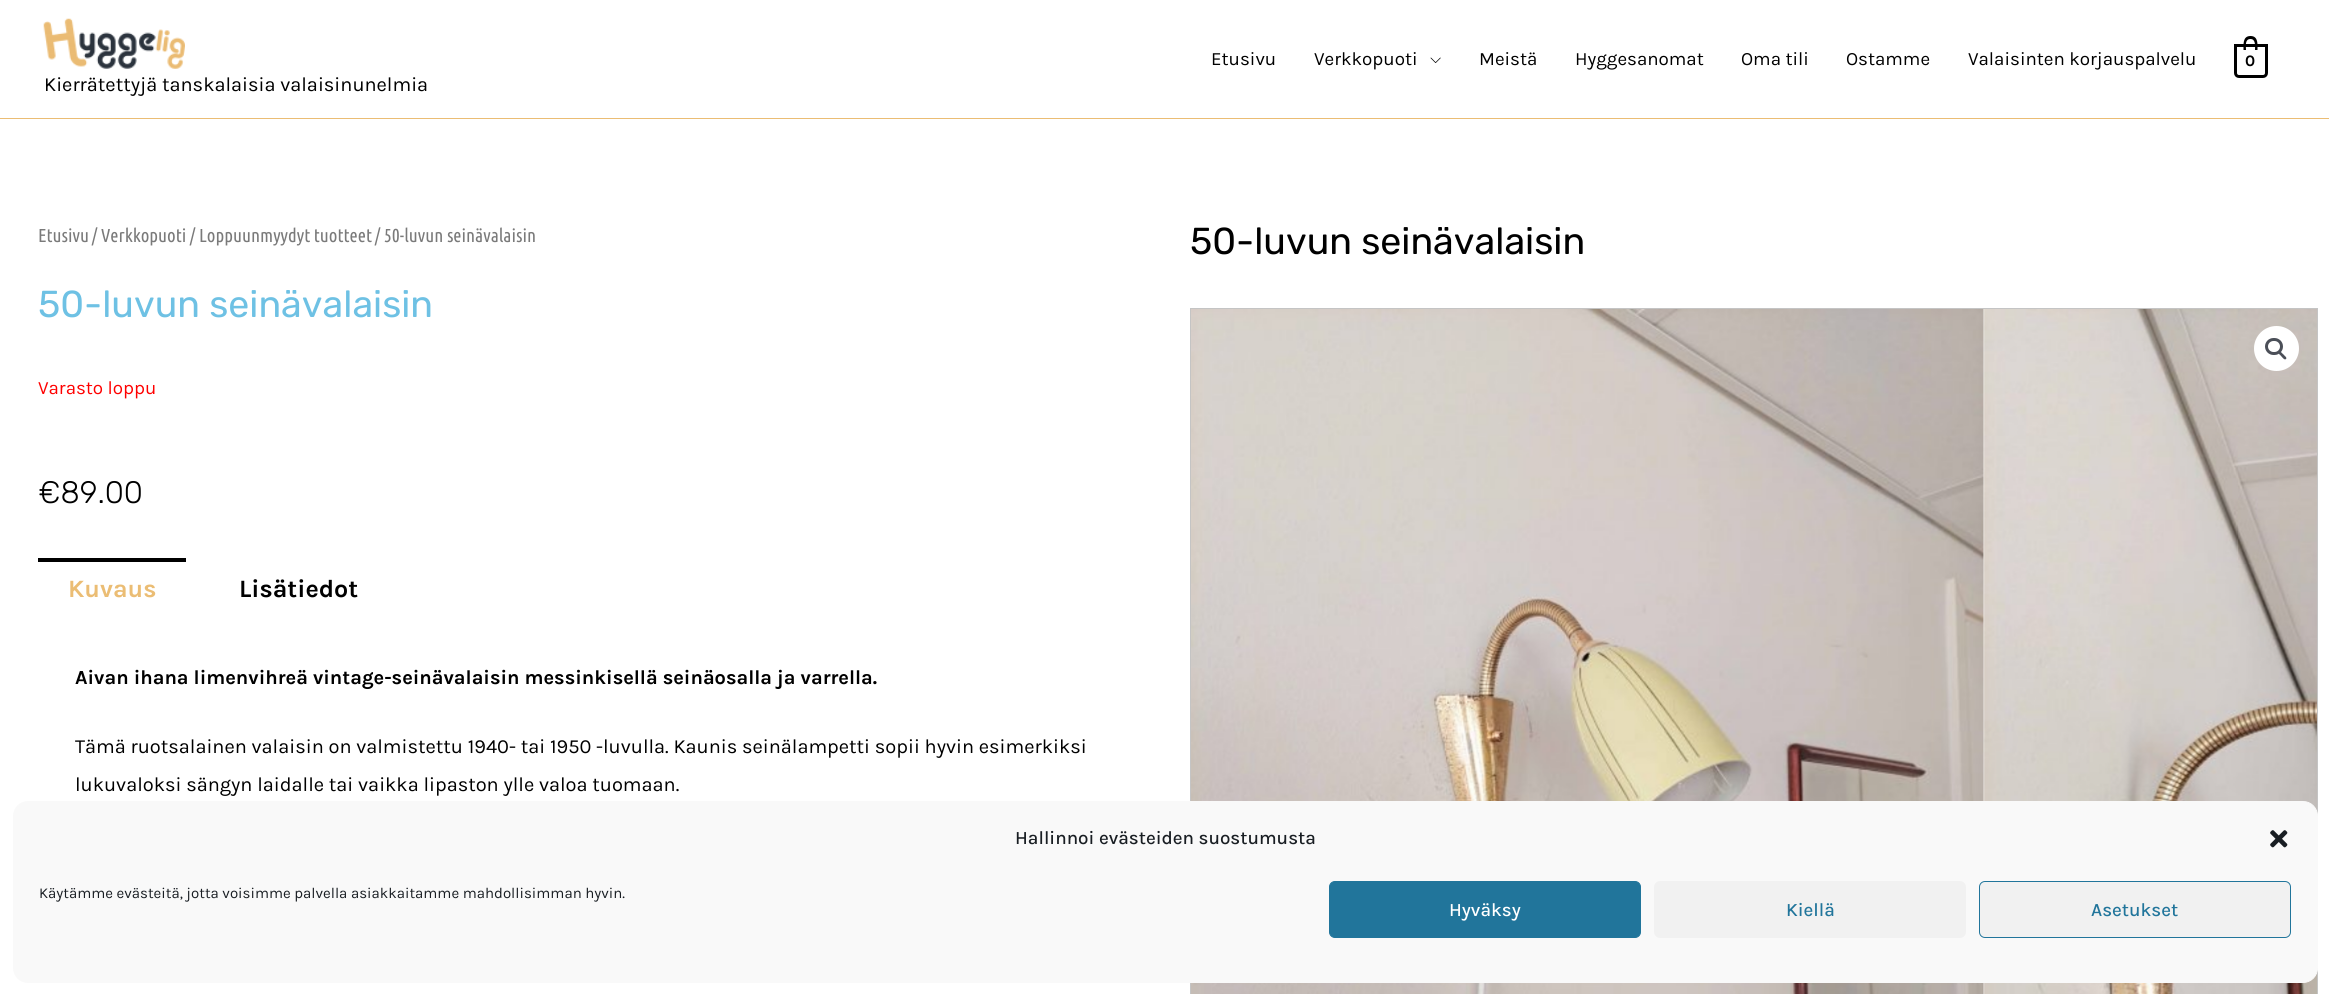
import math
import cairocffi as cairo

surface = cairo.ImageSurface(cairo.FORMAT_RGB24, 2329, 994)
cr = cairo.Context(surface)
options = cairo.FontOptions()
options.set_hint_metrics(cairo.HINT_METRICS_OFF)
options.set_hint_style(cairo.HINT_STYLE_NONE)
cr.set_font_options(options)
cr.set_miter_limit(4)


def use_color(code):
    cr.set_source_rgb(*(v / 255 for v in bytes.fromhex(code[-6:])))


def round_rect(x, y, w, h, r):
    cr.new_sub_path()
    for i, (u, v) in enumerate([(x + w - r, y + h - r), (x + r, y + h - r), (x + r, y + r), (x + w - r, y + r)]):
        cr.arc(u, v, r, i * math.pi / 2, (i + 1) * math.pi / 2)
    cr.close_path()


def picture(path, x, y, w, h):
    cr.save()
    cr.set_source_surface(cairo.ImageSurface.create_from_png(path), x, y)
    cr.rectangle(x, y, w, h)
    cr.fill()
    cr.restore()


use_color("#ffffff")
cr.paint()
use_color("#ebbd74")
cr.rectangle(0, 118, 2329, 1)
cr.fill()
cr.select_font_face("Karla")
cr.set_font_size(18.75)
use_color("#000000")
cr.move_to(1211, 65)
cr.show_text("Etusivu")
cr.move_to(1314, 65)
cr.show_text("Verkkopuoti")
picture("img1.png", 1430, 57, 11, 6)
cr.move_to(1479, 65)
cr.show_text("Meistä")
cr.move_to(1575, 65)
cr.show_text("Hyggesanomat")
cr.move_to(1741, 65)
cr.show_text("Oma tili")
cr.move_to(1846, 65)
cr.show_text("Ostamme")
cr.move_to(1968, 65)
cr.show_text("Valaisinten korjauspalvelu")
cr.new_path()
cr.move_to(2235.5, 45.5)
cr.line_to(2266.5, 45.5)
cr.line_to(2266.5, 73)
cr.curve_to(2266.5, 75, 2265, 76.5, 2263, 76.5)
cr.line_to(2239, 76.5)
cr.curve_to(2237, 76.5, 2235.5, 75, 2235.5, 73)
cr.close_path()
cr.set_line_width(3)
cr.stroke()
cr.set_fill_rule(cairo.FILL_RULE_EVEN_ODD)
cr.new_path()
cr.move_to(2250.5, 36)
cr.curve_to(2258.5, 36, 2257.5, 44.5, 2257.5, 50)
cr.line_to(2243.5, 50)
cr.curve_to(2243.5, 44.5, 2242.5, 36, 2250.5, 36)
cr.close_path()
cr.move_to(2250.5, 39)
cr.curve_to(2256, 39, 2255, 46.5, 2255, 50)
cr.line_to(2246, 50)
cr.curve_to(2246, 46.5, 2244.5, 39, 2250.5, 39)
cr.close_path()
cr.fill()
cr.select_font_face("Karla", cairo.FONT_SLANT_NORMAL, cairo.FONT_WEIGHT_BOLD)
cr.set_font_size(16)
cr.move_to(2245, 66)
cr.show_text("0")
picture("img2.png", 43, 18, 142, 51)
cr.select_font_face("Karla")
cr.set_font_size(20)
cr.move_to(44, 91)
cr.show_text("Kierrätettyjä tanskalaisia valaisinunelmia")
cr.select_font_face("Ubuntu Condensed")
cr.set_font_size(18.75)
use_color("#7a7a7a")
cr.move_to(38, 242)
cr.show_text("Etusivu")
cr.move_to(92, 242)
cr.show_text("/")
cr.move_to(101, 242)
cr.show_text("Verkkopuoti")
cr.move_to(190, 242)
cr.show_text("/")
cr.move_to(199, 242)
cr.show_text("Loppuunmyydyt tuotteet")
cr.move_to(375, 242)
cr.show_text("/ 50-luvun seinävalaisin")
cr.select_font_face("Rubik")
cr.set_font_size(37.5)
use_color("#6ec1e4")
cr.move_to(38, 317)
cr.show_text("50-luvun seinävalaisin")
cr.select_font_face("Karla")
cr.set_font_size(18.75)
use_color("#ff0000")
cr.move_to(38, 394)
cr.show_text("Varasto loppu")
cr.select_font_face("Rubik Light")
cr.set_font_size(31)
use_color("#000000")
cr.move_to(38, 503)
cr.show_text("€89.00")
cr.rectangle(38, 558, 148, 4)
cr.fill()
cr.select_font_face("Karla", cairo.FONT_SLANT_NORMAL, cairo.FONT_WEIGHT_BOLD)
cr.set_font_size(25)
use_color("#ebbd74")
cr.move_to(68, 597)
cr.show_text("Kuvaus")
use_color("#000000")
cr.move_to(239, 597)
cr.show_text("Lisätiedot")
cr.set_font_size(20)
cr.move_to(75, 684)
cr.show_text("Aivan ihana limenvihreä vintage-seinävalaisin messinkisellä seinäosalla ja varrella.")
cr.select_font_face("Karla")
cr.move_to(75, 753)
cr.show_text("Tämä ruotsalainen valaisin on valmistettu 1940- tai 1950 -luvulla. Kaunis seinälampetti sopii hyvin esimerkiksi")
cr.move_to(75, 791)
cr.show_text("lukuvaloksi sängyn laidalle tai vaikka lipaston ylle valoa tuomaan.")
cr.select_font_face("Rubik")
cr.set_font_size(37.5)
cr.move_to(1190, 254)
cr.show_text("50-luvun seinävalaisin")
cr.rectangle(1190.5, 308.5, 1127, 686)
use_color("#c4c4c4")
cr.set_line_width(1)
cr.stroke()
picture("img3.png", 1191, 309, 793, 685)
picture("img4.png", 1983, 309, 334, 685)
use_color("#ffffff")
cr.arc(2276.5, 348.5, 22.5, 0, 2 * math.pi)
cr.fill()
round_rect(2266.5, 339.5, 15, 14, 7)
use_color("#4b4f58")
cr.set_line_width(3)
cr.stroke()
cr.set_fill_rule(cairo.FILL_RULE_WINDING)
cr.new_path()
cr.move_to(2279, 352)
cr.curve_to(2280.5, 350.5, 2282.5, 354, 2283.5, 354.5)
cr.curve_to(2284, 355.5, 2287.5, 357.5, 2286, 359)
cr.curve_to(2284.5, 360.5, 2282.5, 357.5, 2281.5, 356.5)
cr.curve_to(2281, 355.5, 2277.5, 353.5, 2279, 352)
cr.close_path()
cr.fill()
use_color("#f9f9f9")
round_rect(13.5, 801.5, 2304, 181, 14.5)
cr.fill_preserve()
cr.set_line_width(1)
cr.stroke()
cr.select_font_face("Karla Medium")
cr.set_font_size(18.75)
use_color("#191e23")
cr.move_to(1015, 844)
cr.show_text("Hallinnoi evästeiden suostumusta")
picture("img5.png", 2270, 830, 18, 18)
cr.select_font_face("Karla")
cr.set_font_size(15)
cr.move_to(39, 898)
cr.show_text("Käytämme evästeitä, jotta voisimme palvella asiakkaitamme mahdollisimman hyvin.")
use_color("#21759b")
round_rect(1329.5, 881.5, 311, 56, 5.5)
cr.fill_preserve()
cr.stroke()
cr.select_font_face("Karla Medium")
cr.set_font_size(18.75)
use_color("#ffffff")
cr.move_to(1449, 916)
cr.show_text("Hyväksy")
use_color("#f1f1f1")
round_rect(1654, 881, 312, 57, 6)
cr.fill()
use_color("#21759b")
cr.move_to(1786, 916)
cr.show_text("Kiellä")
use_color("#f1f1f1")
round_rect(1979.5, 881.5, 311, 56, 5.5)
cr.fill_preserve()
use_color("#21759b")
cr.stroke()
cr.move_to(2091, 916)
cr.show_text("Asetukset")
surface.write_to_png("result.png")
